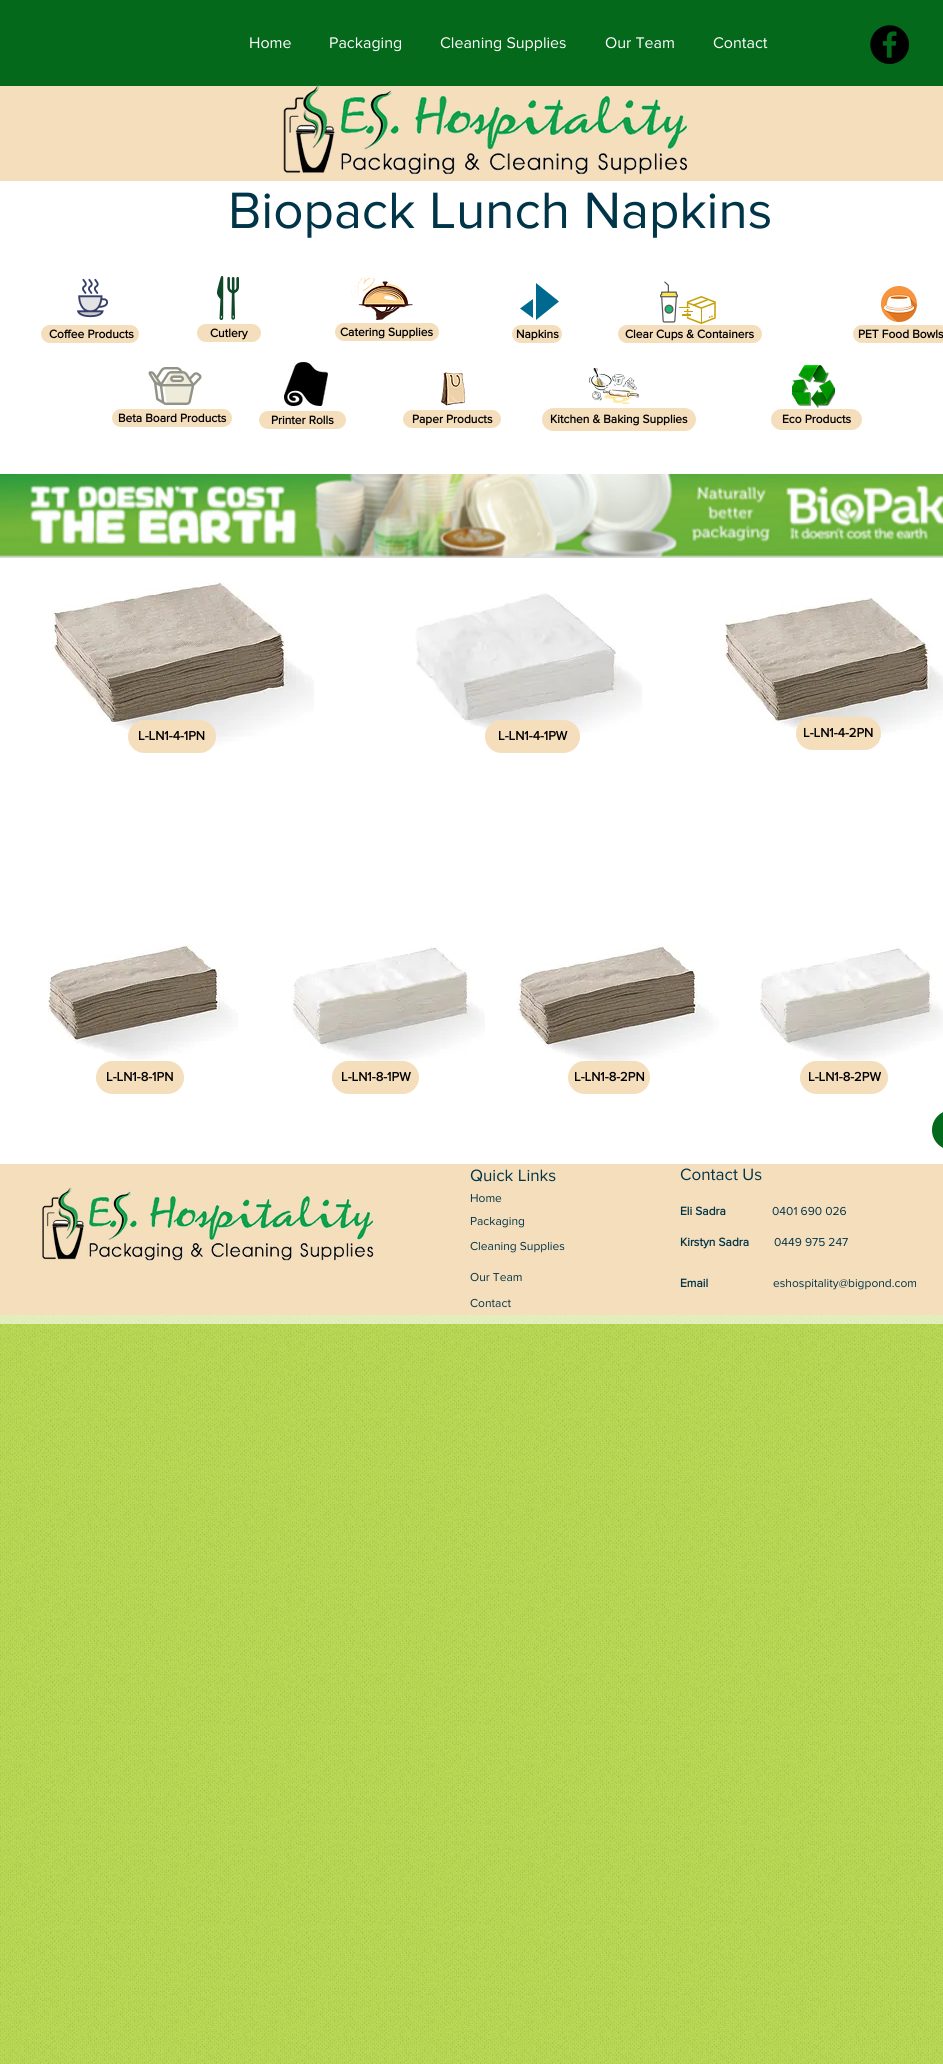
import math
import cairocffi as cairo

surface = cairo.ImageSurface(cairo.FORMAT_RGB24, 943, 2064)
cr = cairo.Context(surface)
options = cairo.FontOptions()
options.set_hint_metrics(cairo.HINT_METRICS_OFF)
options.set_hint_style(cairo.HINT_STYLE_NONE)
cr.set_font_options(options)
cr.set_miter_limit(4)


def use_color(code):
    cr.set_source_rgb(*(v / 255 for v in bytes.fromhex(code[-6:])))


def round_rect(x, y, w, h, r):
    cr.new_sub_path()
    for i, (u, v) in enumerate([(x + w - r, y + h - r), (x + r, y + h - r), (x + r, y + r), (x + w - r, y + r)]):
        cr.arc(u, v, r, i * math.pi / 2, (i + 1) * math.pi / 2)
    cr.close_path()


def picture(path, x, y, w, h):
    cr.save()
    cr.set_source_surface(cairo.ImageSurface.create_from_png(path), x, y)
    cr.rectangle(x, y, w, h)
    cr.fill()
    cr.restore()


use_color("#bada55")
cr.paint()
use_color("#04691a")
cr.rectangle(0, 0, 943, 86)
cr.fill()
cr.select_font_face("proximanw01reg")
cr.set_font_size(16)
use_color("#ffffff")
cr.move_to(249, 48)
cr.show_text("Home")
cr.move_to(329, 48)
cr.show_text("Packaging")
cr.move_to(440, 48)
cr.show_text("Cleaning Supplies")
cr.move_to(605, 48)
cr.show_text("Our Team")
cr.move_to(713, 48)
cr.show_text("Contact")
picture("img1.png", 870, 25, 39, 39)
cr.rectangle(0, 181, 943, 983)
cr.fill()
cr.set_font_size(53)
use_color("#003448")
cr.move_to(228, 228)
cr.show_text("Biopack Lunch Napkins")
picture("img2.png", 77, 278, 31, 40)
picture("img3.png", 217, 276, 22, 44)
picture("img4.png", 351, 278, 62, 42)
use_color("#006990")
cr.new_path()
cr.move_to(559, 301.5)
cr.line_to(536, 320)
cr.line_to(536, 283)
cr.close_path()
cr.move_to(533, 318)
cr.line_to(520, 308.5)
cr.line_to(533, 299)
cr.close_path()
cr.fill()
picture("img5.png", 660, 281, 18, 42)
picture("img6.png", 679, 296, 37, 28)
picture("img7.png", 881, 286, 36, 36)
use_color("#f5debc")
round_rect(41, 325, 98, 18, 9)
cr.fill()
cr.select_font_face("proximanw01reg", cairo.FONT_SLANT_NORMAL, cairo.FONT_WEIGHT_BOLD)
cr.set_font_size(12)
use_color("#000000")
cr.move_to(49, 338)
cr.show_text("Coffee Products")
use_color("#f5debc")
round_rect(197, 324, 64, 18, 9)
cr.fill()
use_color("#000000")
cr.move_to(210, 337)
cr.show_text("Cutlery")
use_color("#f5debc")
round_rect(335, 323, 104, 18, 9)
cr.fill()
use_color("#000000")
cr.move_to(340, 336)
cr.show_text("Catering Supplies")
use_color("#f5debc")
round_rect(512, 325, 50, 18, 9)
cr.fill()
use_color("#000000")
cr.move_to(516, 338)
cr.show_text("Napkins")
use_color("#f5debc")
round_rect(618, 325, 144, 18, 9)
cr.fill()
use_color("#000000")
cr.move_to(625, 338)
cr.show_text("Clear Cups & Containers")
use_color("#f5debc")
round_rect(853, 325, 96, 18, 9)
cr.fill()
use_color("#000000")
cr.move_to(858, 338)
cr.show_text("PET Food Bowls")
picture("img8.png", 148, 367, 54, 38)
picture("img9.png", 284, 362, 44, 44)
picture("img10.png", 441, 372, 25, 34)
picture("img11.png", 589, 368, 50, 36)
picture("img12.png", 792, 365, 43, 44)
use_color("#f5debc")
round_rect(112, 409, 120, 18, 9)
cr.fill()
use_color("#000000")
cr.move_to(118, 422)
cr.show_text("Beta Board Products")
use_color("#f5debc")
round_rect(259, 411, 87, 18, 9)
cr.fill()
use_color("#000000")
cr.move_to(271, 424)
cr.show_text("Printer Rolls")
use_color("#f5debc")
round_rect(403, 410, 98, 18, 9)
cr.fill()
use_color("#000000")
cr.move_to(412, 423)
cr.show_text("Paper Products")
use_color("#f5debc")
round_rect(542, 408, 154, 23, 11.5)
cr.fill()
use_color("#000000")
cr.move_to(550, 423)
cr.show_text("Kitchen & Baking Supplies")
use_color("#f5debc")
round_rect(771, 409, 91, 21, 10.5)
cr.fill()
use_color("#000000")
cr.move_to(782, 423)
cr.show_text("Eco Products")
picture("img13.png", 0, 474, 943, 84)
picture("img14.png", 52, 582, 262, 167)
picture("img15.png", 415, 593, 227, 150)
picture("img16.png", 724, 598, 219, 145)
use_color("#f5debc")
round_rect(128, 720, 88, 33, 16.5)
cr.fill()
cr.set_font_size(13)
use_color("#000000")
cr.move_to(138, 740)
cr.show_text("L-LN1-4-1PN")
use_color("#f5debc")
round_rect(485, 720, 95, 33, 16.5)
cr.fill()
use_color("#000000")
cr.move_to(498, 740)
cr.show_text("L-LN1-4-1PW")
use_color("#f5debc")
round_rect(796, 717, 85, 33, 16.5)
cr.fill()
use_color("#000000")
cr.move_to(803, 737)
cr.show_text("L-LN1-4-2PN")
picture("img17.png", 48, 943, 190, 117)
picture("img18.png", 292, 947, 193, 118)
picture("img19.png", 485, 945, 234, 120)
picture("img20.png", 760, 948, 183, 115)
use_color("#f5debc")
round_rect(96, 1061, 88, 33, 16.5)
cr.fill()
use_color("#000000")
cr.move_to(106, 1081)
cr.show_text("L-LN1-8-1PN")
use_color("#f5debc")
round_rect(332, 1061, 87, 33, 16.5)
cr.fill()
use_color("#000000")
cr.move_to(341, 1081)
cr.show_text("L-LN1-8-1PW")
use_color("#f5debc")
round_rect(568, 1061, 82, 33, 16.5)
cr.fill()
use_color("#000000")
cr.move_to(574, 1081)
cr.show_text("L-LN1-8-2PN")
use_color("#f5debc")
round_rect(800, 1061, 88, 33, 16.5)
cr.fill()
use_color("#000000")
cr.move_to(808, 1081)
cr.show_text("L-LN1-8-2PW")
use_color("#04691a")
round_rect(932, 1110, 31, 40, 20)
cr.fill()
use_color("#f5debc")
cr.rectangle(0, 86, 943, 95)
cr.fill()
picture("img21.png", 283, 84, 405, 91)
cr.rectangle(0, 1164, 943, 151)
cr.fill()
cr.select_font_face("proximanw01reg")
cr.set_font_size(17)
use_color("#003448")
cr.move_to(470, 1181)
cr.show_text("Quick Links")
cr.move_to(680, 1180)
cr.show_text("Contact Us")
picture("img22.png", 42, 1187, 332, 74)
cr.set_font_size(12)
cr.move_to(470, 1202)
cr.show_text("Home")
cr.select_font_face("proximanw01reg", cairo.FONT_SLANT_NORMAL, cairo.FONT_WEIGHT_BOLD)
cr.move_to(680, 1215)
cr.show_text("Eli Sadra")
cr.select_font_face("proximanw01reg")
cr.move_to(772, 1215)
cr.show_text("0401 690 026")
cr.move_to(470, 1225)
cr.show_text("Packaging")
cr.move_to(470, 1250)
cr.show_text("Cleaning Supplies")
cr.select_font_face("proximanw01reg", cairo.FONT_SLANT_NORMAL, cairo.FONT_WEIGHT_BOLD)
cr.move_to(680, 1246)
cr.show_text("Kirstyn Sadra")
cr.select_font_face("proximanw01reg")
cr.move_to(774, 1246)
cr.show_text("0449 975 247")
cr.move_to(470, 1281)
cr.show_text("Our Team")
cr.select_font_face("proximanw01reg", cairo.FONT_SLANT_NORMAL, cairo.FONT_WEIGHT_BOLD)
cr.move_to(680, 1287)
cr.show_text("Email")
cr.select_font_face("proximanw01reg")
cr.move_to(773, 1287)
cr.show_text("eshospitality@bigpond.com")
cr.move_to(470, 1307)
cr.show_text("Contact")
picture("img23.png", 0, 1315, 943, 749)
cr.set_source_rgba(1, 1, 1, 0.6)
cr.rectangle(0, 1315, 943, 9)
cr.fill()
surface.write_to_png("result.png")
